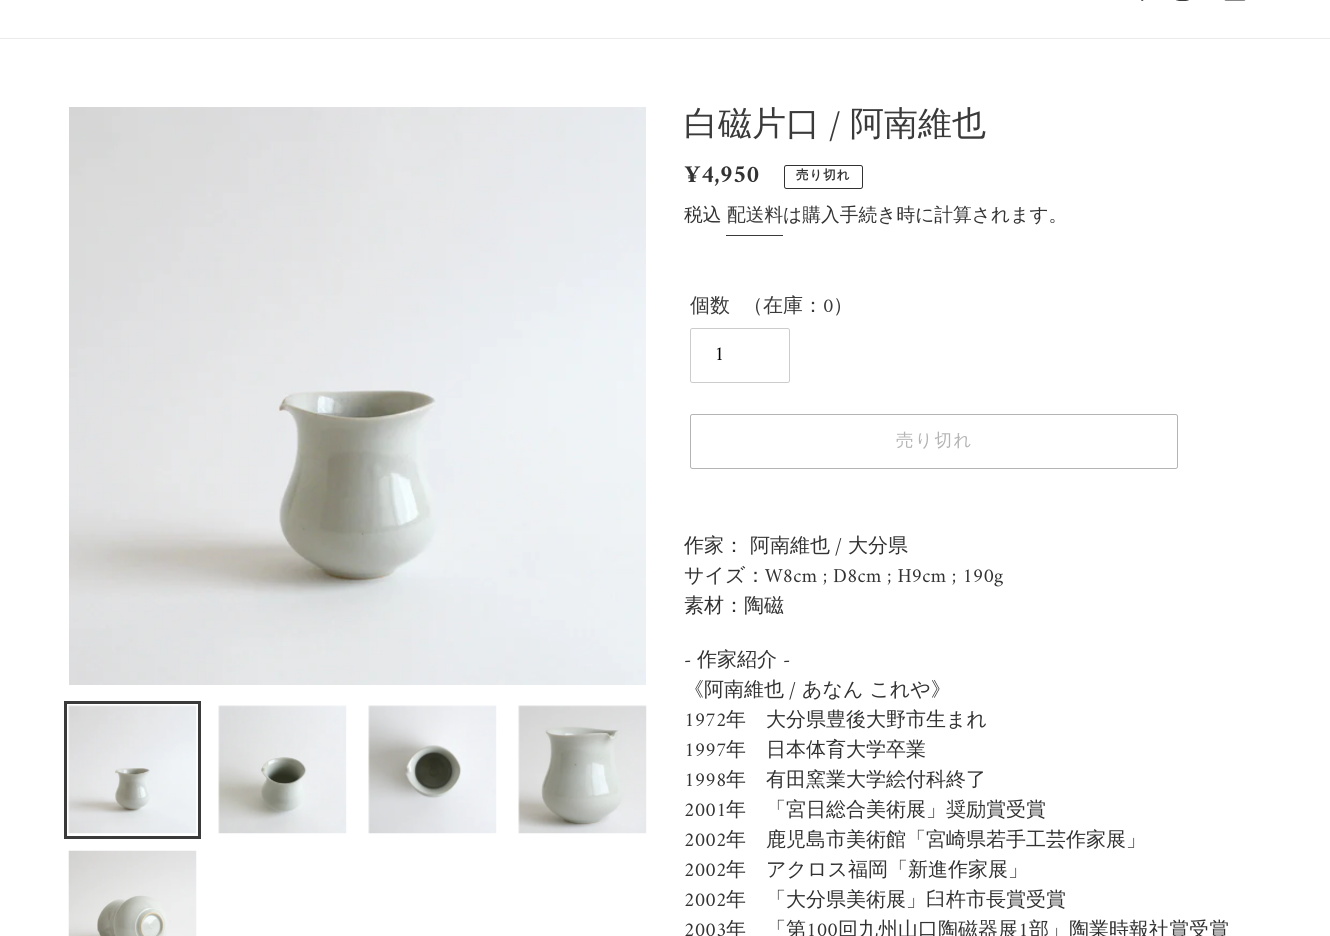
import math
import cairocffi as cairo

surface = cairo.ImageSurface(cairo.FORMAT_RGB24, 1330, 936)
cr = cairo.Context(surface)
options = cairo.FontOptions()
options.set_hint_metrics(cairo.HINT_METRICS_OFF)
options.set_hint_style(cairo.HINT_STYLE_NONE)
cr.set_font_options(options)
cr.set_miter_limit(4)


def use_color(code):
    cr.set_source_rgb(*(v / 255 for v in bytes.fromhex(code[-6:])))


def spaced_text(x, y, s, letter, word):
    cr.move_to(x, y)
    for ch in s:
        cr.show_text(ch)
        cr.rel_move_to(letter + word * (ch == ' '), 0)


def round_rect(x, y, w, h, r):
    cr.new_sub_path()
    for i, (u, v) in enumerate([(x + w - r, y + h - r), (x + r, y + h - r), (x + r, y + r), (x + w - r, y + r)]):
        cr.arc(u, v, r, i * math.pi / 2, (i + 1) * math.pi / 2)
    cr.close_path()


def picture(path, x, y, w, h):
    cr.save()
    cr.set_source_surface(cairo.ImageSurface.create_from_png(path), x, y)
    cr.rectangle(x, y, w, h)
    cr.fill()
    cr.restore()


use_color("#ffffff")
cr.paint()
use_color("#ebebeb")
cr.rectangle(0, 38, 1330, 1)
cr.fill()
picture("img1.png", 1141, 0, 3, 1)
picture("img2.png", 1176, 0, 13, 1)
picture("img3.png", 1224, 0, 22, 1)
picture("img4.png", 69, 107, 577, 578)
cr.rectangle(65.5, 702.5, 134, 135)
use_color("#3a3a3a")
cr.set_line_width(3)
cr.stroke()
picture("img5.png", 68, 705, 129, 129)
picture("img6.png", 218, 705, 129, 129)
picture("img7.png", 368, 705, 129, 129)
picture("img8.png", 518, 705, 129, 129)
picture("img9.png", 68, 850, 129, 86)
cr.select_font_face("WenQuanYi Zen Hei Medium")
cr.set_font_size(34)
cr.move_to(684, 135)
cr.show_text("白磁片口")
cr.select_font_face("Amiri")
cr.move_to(829, 135)
cr.show_text("/")
cr.select_font_face("WenQuanYi Zen Hei Medium")
cr.move_to(850, 135)
cr.show_text("阿南維也")
cr.select_font_face("Amiri", cairo.FONT_SLANT_NORMAL, cairo.FONT_WEIGHT_BOLD)
cr.set_font_size(25)
use_color("#333232")
cr.move_to(684, 182)
cr.show_text("¥4,950")
round_rect(784.5, 165.5, 78, 23, 2)
cr.set_line_width(1)
cr.stroke()
cr.select_font_face("WenQuanYi Zen Hei", cairo.FONT_SLANT_NORMAL, cairo.FONT_WEIGHT_BOLD)
cr.set_font_size(12.5)
spaced_text(796, 179, "売り切れ", 1, 0)
cr.select_font_face("WenQuanYi Zen Hei Medium")
cr.set_font_size(18.75)
cr.move_to(684, 221)
cr.show_text("税込")
use_color("#3a3a3a")
cr.move_to(727, 221)
cr.show_text("配送料")
cr.rectangle(726, 235, 57, 1)
cr.fill()
use_color("#333232")
cr.move_to(783, 221)
cr.show_text("は購入手続き時に計算されます。")
cr.set_font_size(20)
use_color("#3a3a3a")
cr.move_to(690, 312)
cr.show_text("個数")
cr.move_to(743, 312)
cr.show_text("（在庫：")
cr.select_font_face("Amiri")
cr.move_to(823, 312)
cr.show_text("0")
cr.select_font_face("WenQuanYi Zen Hei Medium")
cr.move_to(833, 312)
cr.show_text("）")
round_rect(690.5, 328.5, 99, 54, 2)
use_color("#cccccc")
cr.stroke()
cr.select_font_face("Amiri")
use_color("#000000")
cr.move_to(714, 360)
cr.show_text("1")
round_rect(690.5, 414.5, 487, 54, 2)
use_color("#b4b4b4")
cr.stroke()
cr.select_font_face("WenQuanYi Zen Hei Medium")
cr.set_font_size(17.5)
spaced_text(896, 446, "売り切れ", 1.5, 0)
cr.set_font_size(20)
use_color("#333232")
cr.move_to(684, 552)
cr.show_text("作家： 阿南維也")
cr.select_font_face("Amiri")
cr.move_to(835, 552)
cr.show_text("/")
cr.select_font_face("WenQuanYi Zen Hei Medium")
cr.move_to(848, 552)
cr.show_text("大分県")
cr.move_to(684, 582)
cr.show_text("サイズ：")
cr.select_font_face("Amiri")
cr.move_to(765, 582)
cr.show_text("W8cm ; D8cm ; H9cm ; 190g")
cr.select_font_face("WenQuanYi Zen Hei Medium")
cr.move_to(684, 612)
cr.show_text("素材：陶磁")
cr.select_font_face("Amiri")
cr.move_to(684, 666)
cr.show_text("-")
cr.select_font_face("WenQuanYi Zen Hei Medium")
cr.move_to(697, 666)
cr.show_text("作家紹介")
cr.select_font_face("Amiri")
cr.move_to(783, 666)
cr.show_text("-")
cr.select_font_face("WenQuanYi Zen Hei Medium")
cr.move_to(684, 696)
cr.show_text("《阿南維也")
cr.select_font_face("Amiri")
cr.move_to(789, 696)
cr.show_text("/")
cr.select_font_face("WenQuanYi Zen Hei Medium")
cr.move_to(802, 696)
cr.show_text("あなん これや》")
cr.select_font_face("Amiri")
cr.move_to(684, 726)
cr.show_text("1972")
cr.select_font_face("WenQuanYi Zen Hei Medium")
cr.move_to(726, 726)
cr.show_text("年　大分県豊後大野市生まれ")
cr.select_font_face("Amiri")
cr.move_to(684, 756)
cr.show_text("1997")
cr.select_font_face("WenQuanYi Zen Hei Medium")
cr.move_to(726, 756)
cr.show_text("年　日本体育大学卒業")
cr.select_font_face("Amiri")
cr.move_to(684, 786)
cr.show_text("1998")
cr.select_font_face("WenQuanYi Zen Hei Medium")
cr.move_to(726, 786)
cr.show_text("年　有田窯業大学絵付科終了")
cr.select_font_face("Amiri")
cr.move_to(684, 816)
cr.show_text("2001")
cr.select_font_face("WenQuanYi Zen Hei Medium")
cr.move_to(726, 816)
cr.show_text("年　「宮日総合美術展」奨励賞受賞")
cr.select_font_face("Amiri")
cr.move_to(684, 846)
cr.show_text("2002")
cr.select_font_face("WenQuanYi Zen Hei Medium")
cr.move_to(726, 846)
cr.show_text("年　鹿児島市美術館「宮崎県若手工芸作家展」")
cr.select_font_face("Amiri")
cr.move_to(684, 876)
cr.show_text("2002")
cr.select_font_face("WenQuanYi Zen Hei Medium")
cr.move_to(726, 876)
cr.show_text("年　アクロス福岡「新進作家展」")
cr.select_font_face("Amiri")
cr.move_to(684, 906)
cr.show_text("2002")
cr.select_font_face("WenQuanYi Zen Hei Medium")
cr.move_to(726, 906)
cr.show_text("年　「大分県美術展」臼杵市長賞受賞")
cr.select_font_face("Amiri")
cr.move_to(684, 936)
cr.show_text("2003")
cr.select_font_face("WenQuanYi Zen Hei Medium")
cr.move_to(726, 936)
cr.show_text("年　「第")
cr.select_font_face("Amiri")
cr.move_to(806, 936)
cr.show_text("100")
cr.select_font_face("WenQuanYi Zen Hei Medium")
cr.move_to(838, 936)
cr.show_text("回九州山口陶磁器展")
cr.select_font_face("Amiri")
cr.move_to(1018, 936)
cr.show_text("1")
cr.select_font_face("WenQuanYi Zen Hei Medium")
cr.move_to(1029, 936)
cr.show_text("部」陶業時報社賞受賞")
surface.write_to_png("result.png")
